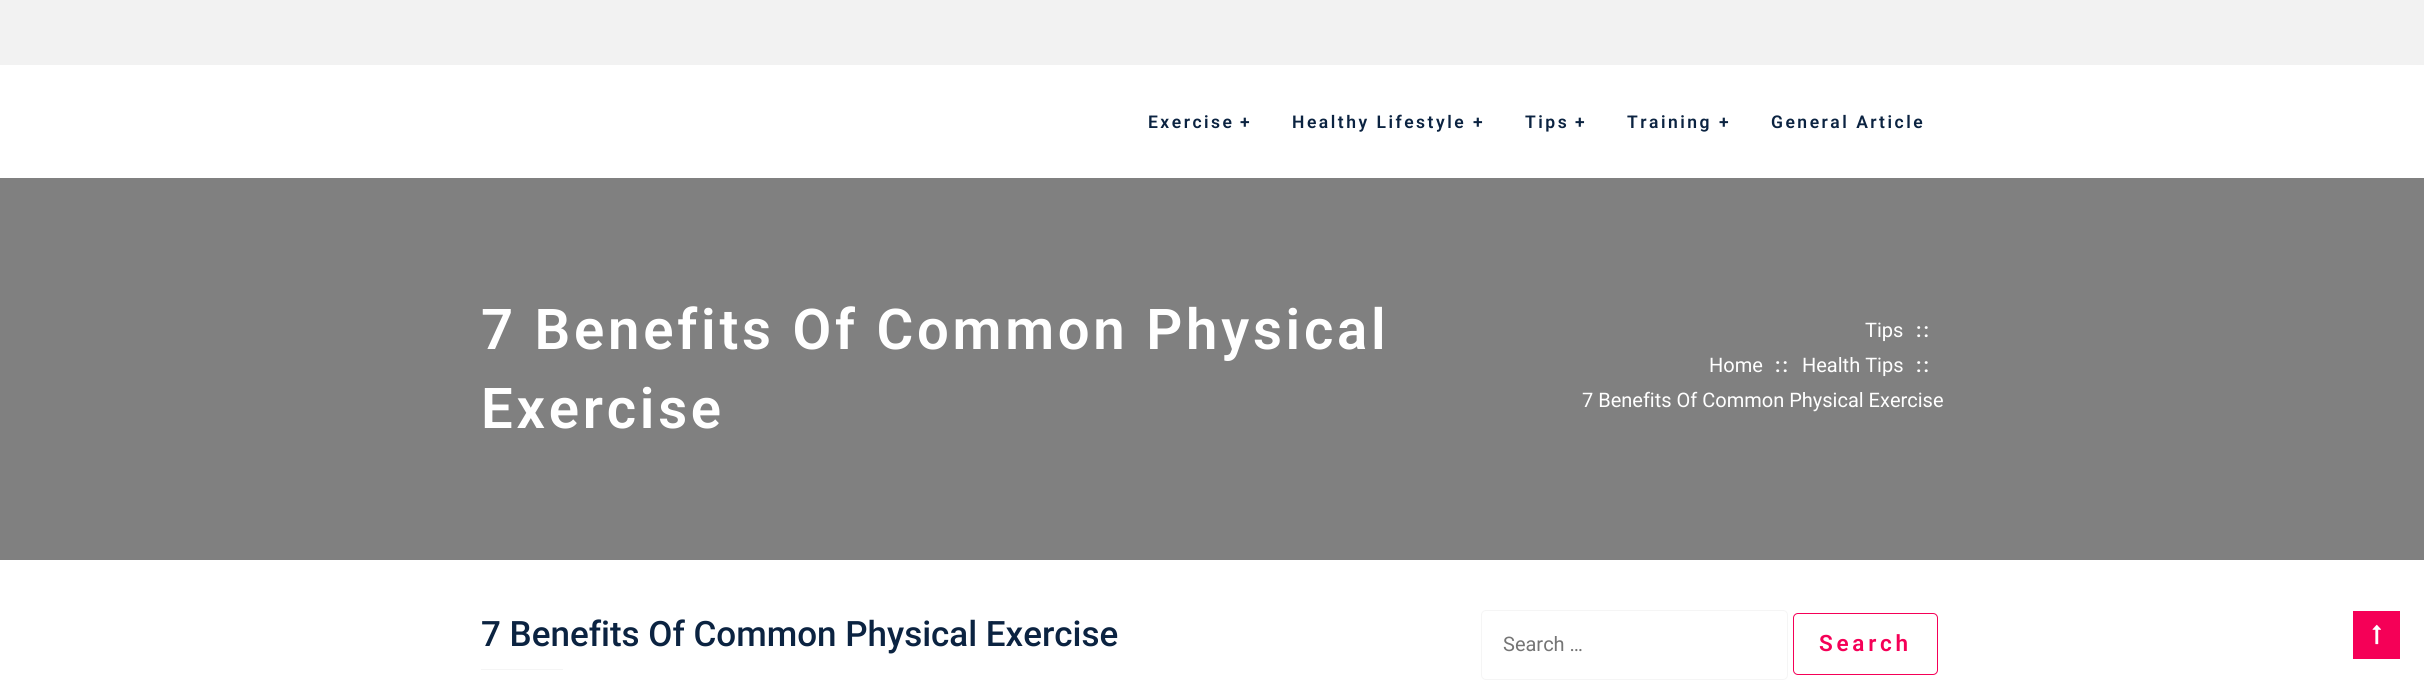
import math
import cairocffi as cairo

surface = cairo.ImageSurface(cairo.FORMAT_RGB24, 2424, 683)
cr = cairo.Context(surface)
options = cairo.FontOptions()
options.set_hint_metrics(cairo.HINT_METRICS_OFF)
options.set_hint_style(cairo.HINT_STYLE_NONE)
cr.set_font_options(options)
cr.set_miter_limit(4)


def use_color(code):
    cr.set_source_rgb(*(v / 255 for v in bytes.fromhex(code[-6:])))


def spaced_text(x, y, s, letter, word):
    cr.move_to(x, y)
    for ch in s:
        cr.show_text(ch)
        cr.rel_move_to(letter + word * (ch == ' '), 0)


def round_rect(x, y, w, h, r):
    cr.new_sub_path()
    for i, (u, v) in enumerate([(x + w - r, y + h - r), (x + r, y + h - r), (x + r, y + r), (x + w - r, y + r)]):
        cr.arc(u, v, r, i * math.pi / 2, (i + 1) * math.pi / 2)
    cr.close_path()


def picture(path, x, y, w, h):
    cr.save()
    cr.set_source_surface(cairo.ImageSurface.create_from_png(path), x, y)
    cr.rectangle(x, y, w, h)
    cr.fill()
    cr.restore()


use_color("#ffffff")
cr.paint()
use_color("#f2f2f2")
cr.rectangle(0, 0, 2424, 65)
cr.fill()
cr.select_font_face("Roboto SemiBold")
cr.set_font_size(17.5)
use_color("#0b2341")
spaced_text(1148, 128, "Exercise", 2.5, 0)
spaced_text(1240, 128, "+", 2.5, 0)
spaced_text(1292, 128, "Healthy Lifestyle", 2.5, 0)
spaced_text(1473, 128, "+", 2.5, 0)
spaced_text(1525, 128, "Tips", 2.5, 0)
spaced_text(1575, 128, "+", 2.5, 0)
spaced_text(1627, 128, "Training", 2.5, 0)
spaced_text(1719, 128, "+", 2.5, 0)
spaced_text(1771, 128, "General Article", 2.5, 0)
use_color("#808080")
cr.rectangle(0, 178, 2424, 382)
cr.fill()
cr.set_font_size(56.25)
use_color("#ffffff")
spaced_text(481, 349, "7 Benefits Of Common Physical", 3.75, 0)
spaced_text(481, 428, "Exercise", 3.75, 0)
cr.select_font_face("Roboto")
cr.set_font_size(20)
cr.move_to(1709, 372)
cr.show_text("Home")
cr.select_font_face("Roboto SemiBold")
spaced_text(1775, 372, "::", 2, 0)
cr.select_font_face("Roboto")
cr.move_to(1865, 337)
cr.show_text("Tips")
cr.select_font_face("Roboto SemiBold")
spaced_text(1916, 337, "::", 2, 0)
cr.select_font_face("Roboto")
cr.move_to(1802, 372)
cr.show_text("Health Tips")
cr.select_font_face("Roboto SemiBold")
spaced_text(1916, 372, "::", 2, 0)
cr.select_font_face("Roboto")
cr.move_to(1582, 407)
cr.show_text("7 Benefits Of Common Physical Exercise")
cr.select_font_face("Roboto Medium")
cr.set_font_size(35)
use_color("#0b2341")
cr.move_to(481, 646)
cr.show_text("7 Benefits Of Common Physical Exercise")
use_color("#f5f5f5")
cr.rectangle(481, 669, 82, 1)
cr.fill()
round_rect(1481.5, 610.5, 306, 69, 4.5)
cr.set_line_width(1)
cr.stroke()
cr.select_font_face("Roboto")
cr.set_font_size(20)
use_color("#757575")
cr.move_to(1503, 651)
cr.show_text("Search …")
round_rect(1793.5, 613.5, 144, 61, 4.5)
use_color("#f50057")
cr.stroke()
cr.select_font_face("Roboto SemiBold")
cr.set_font_size(22.5)
spaced_text(1819, 651, "Search", 3.75, 0)
cr.rectangle(2353, 611, 47, 48)
cr.fill()
picture("img1.png", 2372, 624, 9, 21)
surface.write_to_png("result.png")
